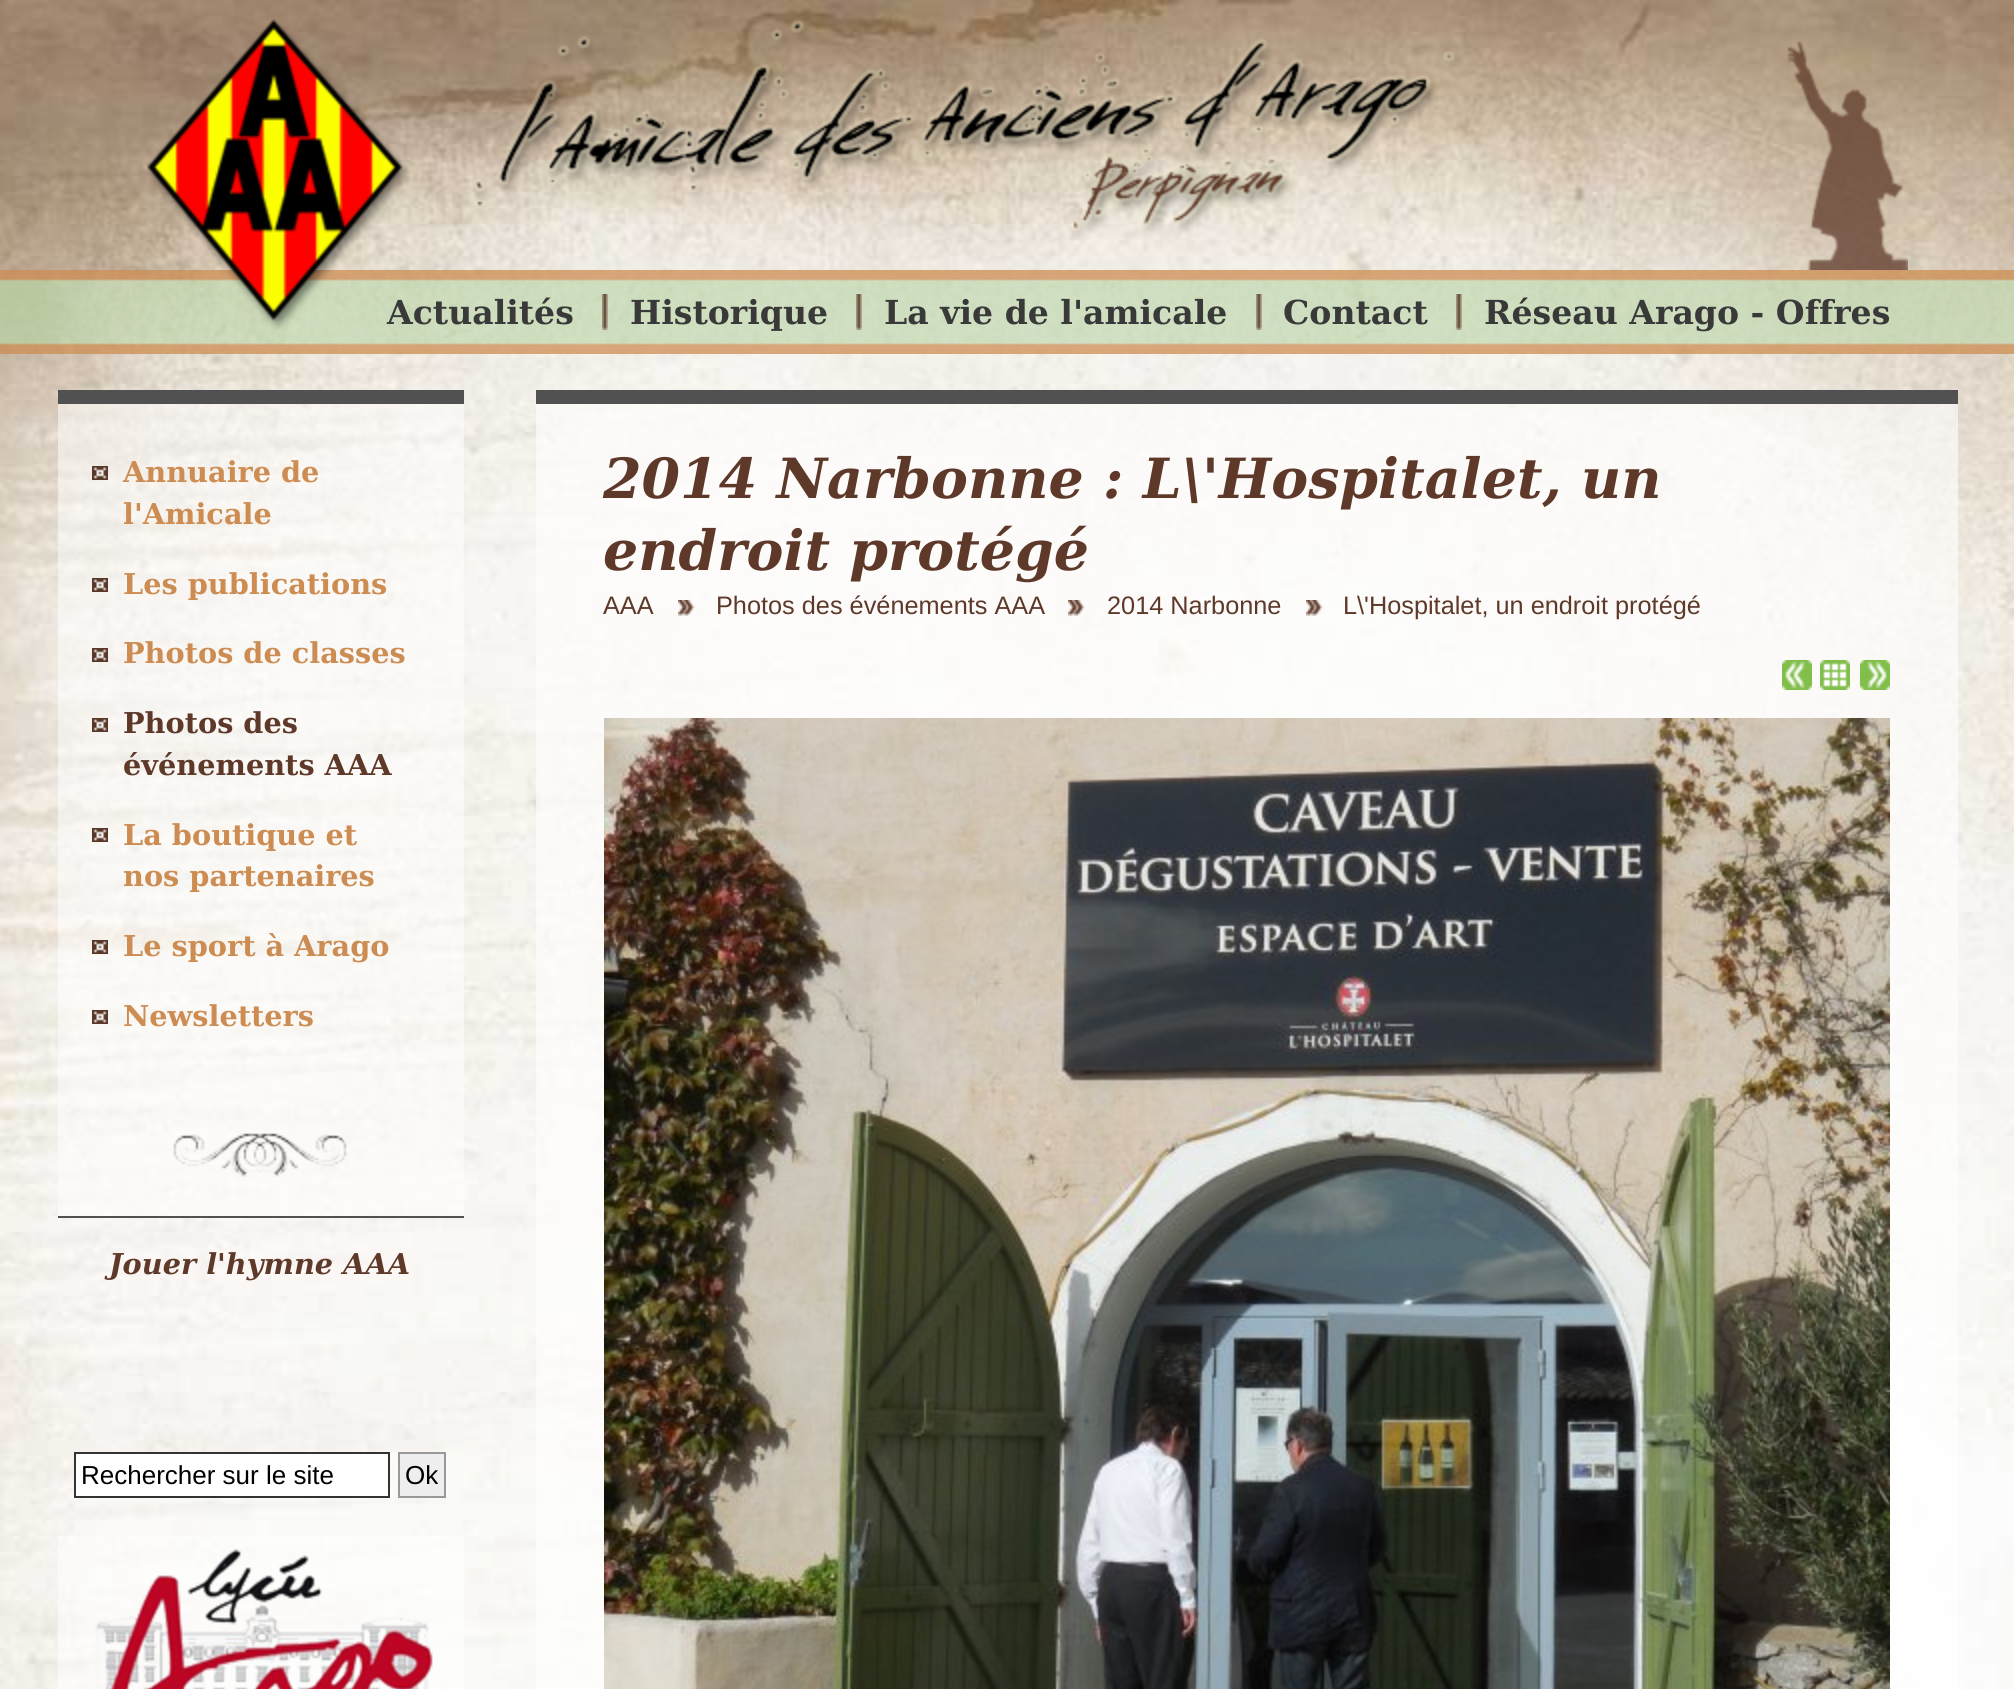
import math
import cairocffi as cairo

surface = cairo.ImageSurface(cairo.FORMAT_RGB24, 2014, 1689)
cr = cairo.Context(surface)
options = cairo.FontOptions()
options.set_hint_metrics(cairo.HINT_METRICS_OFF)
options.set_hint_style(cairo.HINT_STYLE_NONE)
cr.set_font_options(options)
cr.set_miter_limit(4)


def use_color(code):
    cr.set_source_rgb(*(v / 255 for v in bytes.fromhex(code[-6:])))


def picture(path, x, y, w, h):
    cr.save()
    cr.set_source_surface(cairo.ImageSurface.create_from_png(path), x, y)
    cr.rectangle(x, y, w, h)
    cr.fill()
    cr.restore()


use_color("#ffffff")
cr.paint()
picture("img1.png", 0, 0, 2014, 1689)
picture("img2.png", 0, 270, 2014, 84)
picture("img3.png", 147, 19, 263, 311)
picture("img4.png", 474, 19, 1434, 251)
cr.select_font_face("DejaVu Serif", cairo.FONT_SLANT_NORMAL, cairo.FONT_WEIGHT_BOLD)
cr.set_font_size(33.1)
use_color("#393939")
cr.move_to(387, 324)
cr.show_text("Actualités")
picture("img5.png", 602, 294, 6, 36)
cr.move_to(630, 324)
cr.show_text("Historique")
picture("img6.png", 856, 294, 6, 36)
cr.move_to(884, 324)
cr.show_text("La vie de l'amicale")
picture("img7.png", 1256, 294, 6, 36)
cr.move_to(1283, 324)
cr.show_text("Contact")
picture("img8.png", 1456, 294, 6, 36)
cr.move_to(1484, 324)
cr.show_text("Réseau Arago - Offres")
picture("img9.png", 58, 404, 406, 812)
use_color("#515151")
cr.rectangle(58, 390, 406, 14)
cr.fill()
cr.rectangle(58, 1216, 406, 2)
cr.fill()
picture("img10.png", 92, 466, 16, 14)
cr.set_font_size(28.75)
use_color("#cd8c52")
cr.move_to(123, 482)
cr.show_text("Annuaire de")
cr.move_to(123, 524)
cr.show_text("l'Amicale")
picture("img10.png", 92, 578, 16, 14)
cr.move_to(123, 594)
cr.show_text("Les publications")
picture("img10.png", 92, 648, 16, 14)
cr.move_to(123, 663)
cr.show_text("Photos de classes")
picture("img10.png", 92, 718, 16, 14)
use_color("#5e3929")
cr.move_to(123, 733)
cr.show_text("Photos des")
cr.move_to(123, 775)
cr.show_text("événements AAA")
picture("img10.png", 92, 828, 16, 14)
use_color("#cd8c52")
cr.move_to(123, 845)
cr.show_text("La boutique et")
cr.move_to(123, 886)
cr.show_text("nos partenaires")
picture("img10.png", 92, 940, 16, 14)
cr.move_to(123, 956)
cr.show_text("Le sport à Arago")
picture("img10.png", 92, 1010, 16, 14)
cr.move_to(123, 1026)
cr.show_text("Newsletters")
cr.select_font_face("DejaVu Serif", cairo.FONT_SLANT_ITALIC, cairo.FONT_WEIGHT_BOLD)
use_color("#5e3929")
cr.move_to(109, 1274)
cr.show_text("Jouer l'hymne AAA")
use_color("#ffffff")
cr.rectangle(75, 1453, 314, 44)
cr.fill_preserve()
use_color("#333333")
cr.stroke()
cr.select_font_face("Liberation Sans")
cr.set_font_size(26)
use_color("#000000")
cr.move_to(81, 1484)
cr.show_text("Rechercher sur le site")
use_color("#eeeeee")
cr.rectangle(399, 1453, 46, 44)
cr.fill_preserve()
use_color("#999999")
cr.stroke()
use_color("#000000")
cr.move_to(405, 1484)
cr.show_text("Ok")
picture("img11.png", 58, 1536, 406, 153)
cr.set_source_rgba(1, 1, 1, 0.6)
cr.rectangle(536, 404, 1422, 1285)
cr.fill()
use_color("#515151")
cr.rectangle(536, 390, 1422, 14)
cr.fill()
cr.select_font_face("DejaVu Serif", cairo.FONT_SLANT_ITALIC, cairo.FONT_WEIGHT_BOLD)
cr.set_font_size(55.4)
use_color("#5e3929")
cr.move_to(603, 498)
cr.show_text("2014 Narbonne : L\\'Hospitalet, un")
cr.move_to(603, 570)
cr.show_text("endroit protégé")
cr.select_font_face("Liberation Sans")
cr.set_font_size(25.3)
cr.move_to(603, 614)
cr.show_text("AAA")
picture("img12.png", 678, 600, 17, 16)
cr.move_to(716, 614)
cr.show_text("Photos des événements AAA")
picture("img13.png", 1068, 600, 17, 16)
cr.move_to(1107, 614)
cr.show_text("2014 Narbonne")
picture("img14.png", 1306, 600, 17, 16)
cr.move_to(1343, 614)
cr.show_text("L\\'Hospitalet, un endroit protégé")
picture("img15.png", 1782, 660, 30, 30)
picture("img16.png", 1820, 660, 30, 30)
picture("img17.png", 1860, 660, 30, 30)
picture("img18.png", 604, 718, 1286, 971)
surface.write_to_png("result.png")
